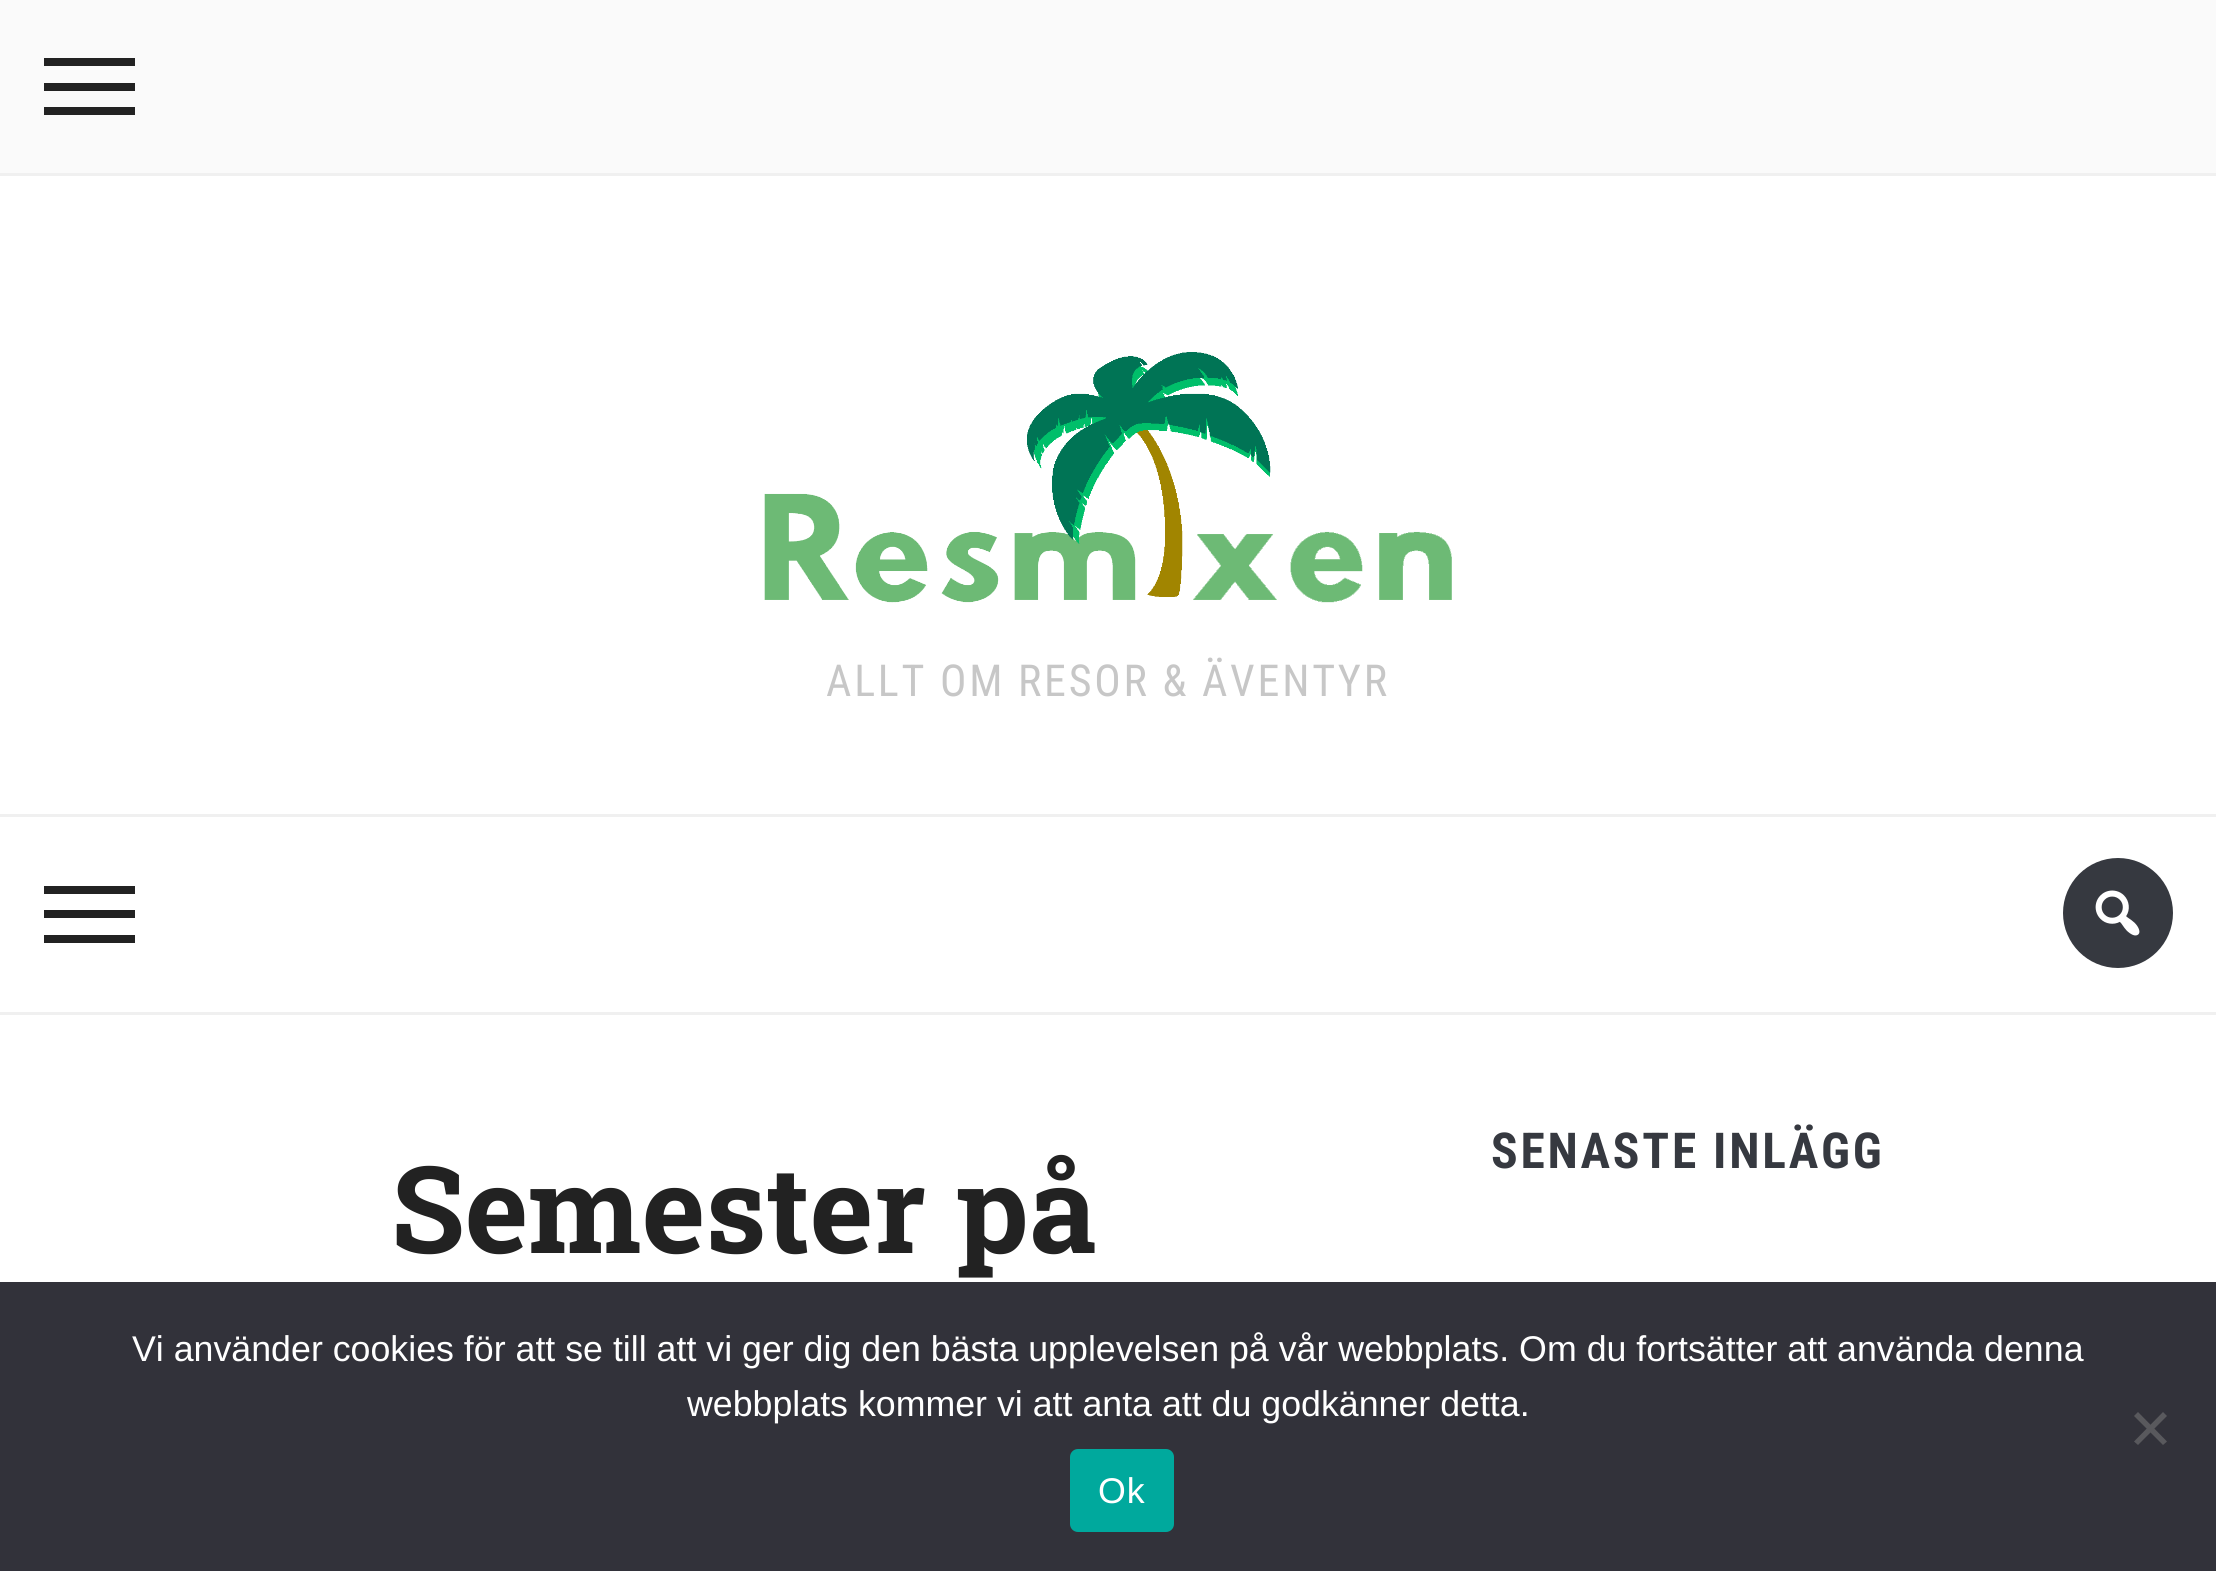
import math
import cairocffi as cairo

surface = cairo.ImageSurface(cairo.FORMAT_RGB24, 2216, 1571)
cr = cairo.Context(surface)
options = cairo.FontOptions()
options.set_hint_metrics(cairo.HINT_METRICS_OFF)
options.set_hint_style(cairo.HINT_STYLE_NONE)
cr.set_font_options(options)
cr.set_miter_limit(4)


def use_color(code):
    cr.set_source_rgb(*(v / 255 for v in bytes.fromhex(code[-6:])))


def spaced_text(x, y, s, letter, word):
    cr.move_to(x, y)
    for ch in s:
        cr.show_text(ch)
        cr.rel_move_to(letter + word * (ch == ' '), 0)


def round_rect(x, y, w, h, r):
    cr.new_sub_path()
    for i, (u, v) in enumerate([(x + w - r, y + h - r), (x + r, y + h - r), (x + r, y + r), (x + w - r, y + r)]):
        cr.arc(u, v, r, i * math.pi / 2, (i + 1) * math.pi / 2)
    cr.close_path()


def picture(path, x, y, w, h):
    cr.save()
    cr.set_source_surface(cairo.ImageSurface.create_from_png(path), x, y)
    cr.rectangle(x, y, w, h)
    cr.fill()
    cr.restore()


use_color("#ffffff")
cr.paint()
use_color("#fafafa")
cr.rectangle(0, 0, 2216, 173)
cr.fill()
use_color("#f0f0f0")
cr.rectangle(0, 173, 2216, 3)
cr.fill()
use_color("#222222")
cr.rectangle(44, 58, 91, 8)
cr.fill()
cr.rectangle(44, 83, 91, 8)
cr.fill()
cr.rectangle(44, 107, 91, 8)
cr.fill()
picture("img1.png", 764, 352, 688, 251)
cr.select_font_face("Roboto Condensed")
cr.set_font_size(44)
use_color("#c7c7c7")
spaced_text(826, 696, "ALLT OM RESOR & ÄVENTYR", 2.75, 0)
use_color("#f0f0f0")
cr.rectangle(0, 814, 2216, 3)
cr.fill()
cr.rectangle(0, 1012, 2216, 3)
cr.fill()
use_color("#222222")
cr.rectangle(44, 886, 91, 8)
cr.fill()
cr.rectangle(44, 910, 91, 8)
cr.fill()
cr.rectangle(44, 935, 91, 8)
cr.fill()
use_color("#363940")
cr.arc(2118, 913, 55, 0, 2 * math.pi)
cr.fill()
picture("img2.png", 2095, 890, 45, 46)
cr.select_font_face("Roboto Condensed", cairo.FONT_SLANT_NORMAL, cairo.FONT_WEIGHT_BOLD)
cr.set_font_size(49.5)
spaced_text(1491, 1168, "SENASTE INLÄGG", 2.75, 0)
cr.select_font_face("Roboto Slab", cairo.FONT_SLANT_NORMAL, cairo.FONT_WEIGHT_BOLD)
cr.set_font_size(121)
use_color("#222222")
cr.move_to(391, 1253)
cr.show_text("Semester på")
use_color("#32323a")
cr.rectangle(0, 1282, 2216, 289)
cr.fill()
cr.select_font_face("Liberation Sans")
cr.set_font_size(35.75)
use_color("#ffffff")
cr.move_to(132, 1361)
cr.show_text("Vi använder cookies för att se till att vi ger dig den bästa upplevelsen på vår webbplats. Om du fortsätter att använda denna")
cr.move_to(687, 1416)
cr.show_text("webbplats kommer vi att anta att du godkänner detta.")
use_color("#59595d")
cr.new_path()
cr.move_to(2163, 1412)
cr.line_to(2167, 1416)
cr.line_to(2138, 1445)
cr.line_to(2134, 1441.5)
cr.close_path()
cr.fill()
cr.new_path()
cr.move_to(2134, 1416)
cr.line_to(2138, 1412)
cr.line_to(2167, 1441.5)
cr.line_to(2163, 1445)
cr.close_path()
cr.fill()
use_color("#00a99d")
round_rect(1070, 1449, 104, 83, 8)
cr.fill()
use_color("#ffffff")
spaced_text(1098, 1503, "Ok", 1, 0)
surface.write_to_png("result.png")
